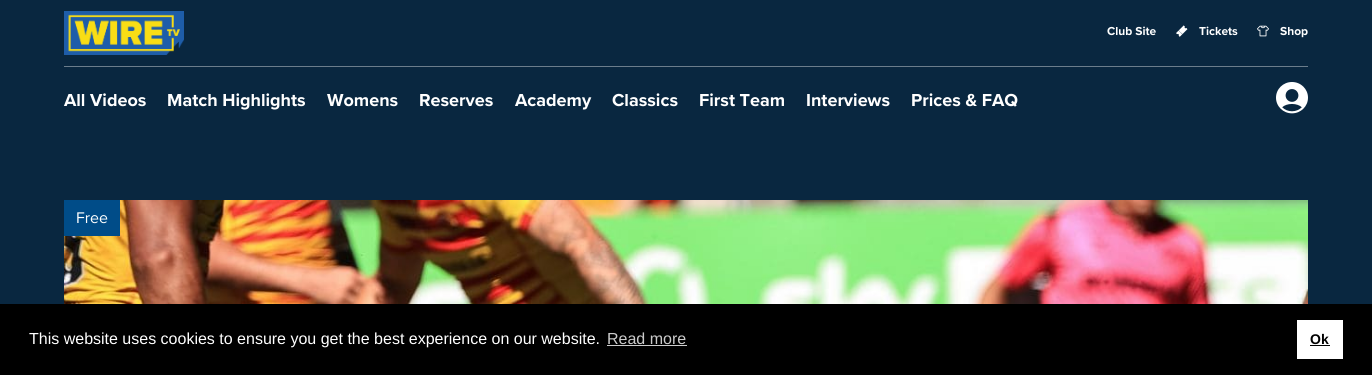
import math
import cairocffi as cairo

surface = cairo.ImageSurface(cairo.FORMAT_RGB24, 1372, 375)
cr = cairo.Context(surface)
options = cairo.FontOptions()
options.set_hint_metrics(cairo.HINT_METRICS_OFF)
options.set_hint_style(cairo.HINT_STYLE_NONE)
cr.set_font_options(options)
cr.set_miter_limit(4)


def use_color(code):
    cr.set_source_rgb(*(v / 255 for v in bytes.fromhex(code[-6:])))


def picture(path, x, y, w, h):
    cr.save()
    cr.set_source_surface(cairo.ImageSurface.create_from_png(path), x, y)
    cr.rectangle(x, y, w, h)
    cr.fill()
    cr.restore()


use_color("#092740")
cr.paint()
use_color("#6b7d8c")
cr.rectangle(64, 66, 1244, 1)
cr.fill()
picture("img1.png", 64, 11, 120, 44)
cr.select_font_face("Proxima Nova", cairo.FONT_SLANT_NORMAL, cairo.FONT_WEIGHT_BOLD)
cr.set_font_size(12)
use_color("#ffffff")
cr.move_to(1107, 35)
cr.show_text("Club Site")
picture("img2.png", 1176, 25, 12, 12)
cr.move_to(1199, 35)
cr.show_text("Tickets")
picture("img3.png", 1257, 25, 12, 12)
cr.move_to(1280, 35)
cr.show_text("Shop")
cr.set_font_size(18)
cr.move_to(64, 106)
cr.show_text("All Videos")
cr.move_to(167, 106)
cr.show_text("Match Highlights")
cr.move_to(327, 106)
cr.show_text("Womens")
cr.move_to(419, 106)
cr.show_text("Reserves")
cr.move_to(515, 106)
cr.show_text("Academy")
cr.move_to(612, 106)
cr.show_text("Classics")
cr.move_to(699, 106)
cr.show_text("First Team")
cr.move_to(806, 106)
cr.show_text("Interviews")
cr.move_to(911, 106)
cr.show_text("Prices & FAQ")
picture("img4.png", 1276, 82, 32, 32)
picture("img5.png", 64, 200, 1244, 104)
use_color("#004c88")
cr.rectangle(64, 200, 56, 36)
cr.fill()
cr.select_font_face("Proxima Nova")
cr.set_font_size(16)
use_color("#ffffff")
cr.move_to(76, 223)
cr.show_text("Free")
use_color("#000000")
cr.rectangle(0, 304, 1372, 71)
cr.fill()
cr.select_font_face("Liberation Sans")
use_color("#ffffff")
cr.move_to(29, 344)
cr.show_text("This website uses cookies to ensure you get the best experience on our website.")
use_color("#cccccc")
cr.move_to(607, 344)
cr.show_text("Read more")
cr.rectangle(607, 345, 80, 1)
cr.fill()
use_color("#ffffff")
cr.rectangle(1297, 320, 46, 39)
cr.fill()
cr.select_font_face("Liberation Sans", cairo.FONT_SLANT_NORMAL, cairo.FONT_WEIGHT_BOLD)
cr.set_font_size(14)
use_color("#000000")
cr.move_to(1310, 344)
cr.show_text("Ok")
cr.rectangle(1310, 345, 20, 1)
cr.fill()
surface.write_to_png("result.png")
